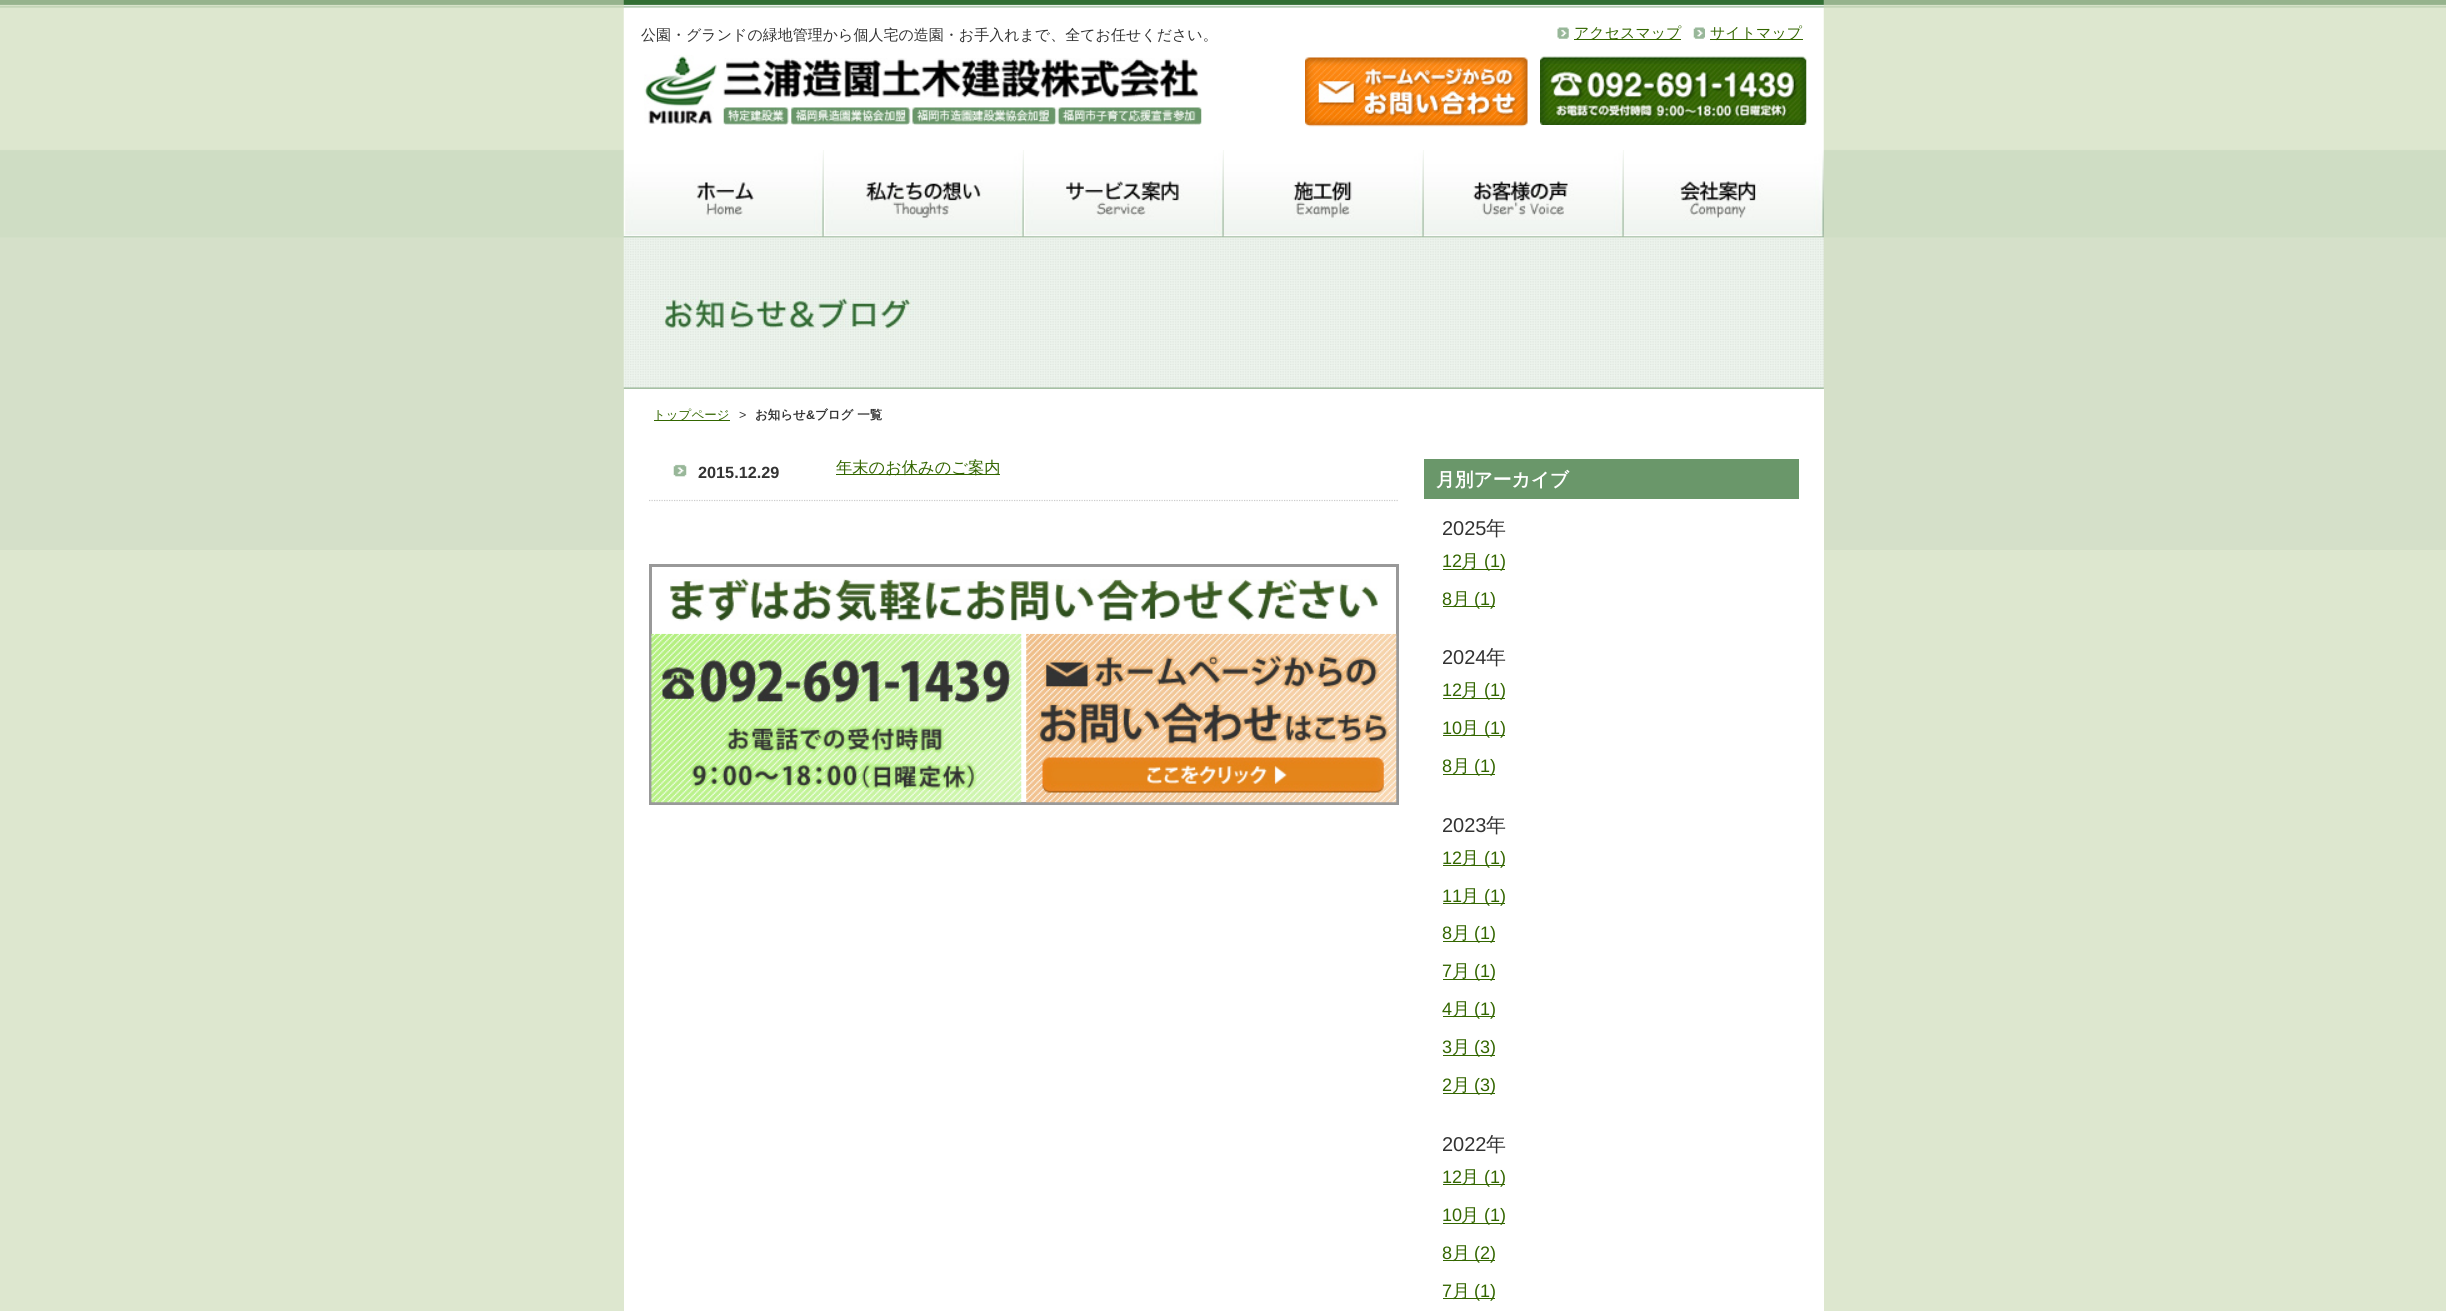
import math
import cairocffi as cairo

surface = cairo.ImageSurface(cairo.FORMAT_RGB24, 2446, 1311)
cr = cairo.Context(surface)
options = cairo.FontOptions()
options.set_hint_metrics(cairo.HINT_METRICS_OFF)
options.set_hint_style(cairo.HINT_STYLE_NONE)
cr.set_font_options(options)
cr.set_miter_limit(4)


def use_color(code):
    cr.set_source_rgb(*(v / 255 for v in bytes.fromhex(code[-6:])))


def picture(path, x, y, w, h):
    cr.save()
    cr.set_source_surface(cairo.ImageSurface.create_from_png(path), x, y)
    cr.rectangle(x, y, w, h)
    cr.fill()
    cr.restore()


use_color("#dde7cf")
cr.paint()
picture("img1.png", 0, 0, 2446, 550)
picture("img2.png", 623, 0, 1201, 150)
cr.select_font_face("WenQuanYi Zen Hei Medium")
cr.set_font_size(15)
use_color("#333333")
cr.move_to(641, 40)
cr.show_text("公園・グランドの緑地管理から個人宅の造園・お手入れまで、全てお任せください。")
picture("img3.png", 1557, 27, 12, 12)
use_color("#336600")
cr.rectangle(1574, 39, 107, 1)
cr.fill()
cr.move_to(1574, 38)
cr.show_text("アクセスマップ")
picture("img4.png", 1693, 27, 12, 12)
cr.rectangle(1710, 39, 93, 1)
cr.fill()
cr.move_to(1710, 38)
cr.show_text("サイトマップ")
picture("img5.png", 644, 55, 73, 70)
picture("img6.png", 723, 58, 476, 40)
picture("img7.png", 1305, 57, 223, 70)
picture("img8.png", 1540, 56, 267, 69)
picture("img9.png", 723, 107, 479, 18)
picture("img10.png", 623, 150, 201, 88)
picture("img11.png", 823, 150, 201, 88)
picture("img12.png", 1023, 150, 201, 88)
picture("img13.png", 1223, 150, 201, 88)
picture("img14.png", 1423, 150, 201, 88)
picture("img15.png", 1623, 150, 201, 88)
picture("img16.png", 623, 237, 1201, 152)
use_color("#ffffff")
cr.rectangle(624, 389, 1200, 922)
cr.fill()
use_color("#336600")
cr.rectangle(654, 420, 76, 1)
cr.fill()
cr.set_font_size(12.5)
cr.move_to(653, 419)
cr.show_text("トップページ")
cr.select_font_face("Liberation Sans")
use_color("#333333")
cr.move_to(739, 419)
cr.show_text(">")
cr.select_font_face("WenQuanYi Zen Hei", cairo.FONT_SLANT_NORMAL, cairo.FONT_WEIGHT_BOLD)
cr.move_to(755, 419)
cr.show_text("お知らせ")
cr.select_font_face("Liberation Sans", cairo.FONT_SLANT_NORMAL, cairo.FONT_WEIGHT_BOLD)
cr.move_to(806, 419)
cr.show_text("&")
cr.select_font_face("WenQuanYi Zen Hei", cairo.FONT_SLANT_NORMAL, cairo.FONT_WEIGHT_BOLD)
cr.move_to(815, 419)
cr.show_text("ブログ 一覧")
cr.new_path()
cr.move_to(649, 500.5)
cr.line_to(1399, 500.5)
use_color("#cccccc")
cr.set_line_width(1.2)
cr.set_dash([1.25, 1.25])
cr.stroke()
picture("img17.png", 673, 464, 14, 13)
cr.select_font_face("Liberation Sans", cairo.FONT_SLANT_NORMAL, cairo.FONT_WEIGHT_BOLD)
cr.set_font_size(16.25)
use_color("#333333")
cr.move_to(698, 478)
cr.show_text("2015.12.29")
use_color("#336600")
cr.rectangle(836, 474, 164, 1)
cr.fill()
cr.select_font_face("WenQuanYi Zen Hei Medium")
cr.move_to(836, 473)
cr.show_text("年末のお休みのご案内")
cr.rectangle(650.5, 565.5, 747, 238)
use_color("#999999")
cr.set_line_width(3)
cr.set_dash([])
cr.stroke()
picture("img18.png", 670, 578, 708, 44)
picture("img19.png", 651, 633, 371, 170)
picture("img20.png", 1026, 633, 371, 170)
use_color("#6a976a")
cr.rectangle(1424, 459, 375, 40)
cr.fill()
cr.select_font_face("WenQuanYi Zen Hei", cairo.FONT_SLANT_NORMAL, cairo.FONT_WEIGHT_BOLD)
cr.set_font_size(18.75)
use_color("#ffffff")
cr.move_to(1436, 486)
cr.show_text("月別アーカイブ")
cr.select_font_face("Liberation Sans")
cr.set_font_size(20)
use_color("#333333")
cr.move_to(1442, 535)
cr.show_text("2025")
cr.select_font_face("WenQuanYi Zen Hei Medium")
cr.move_to(1486, 535)
cr.show_text("年")
cr.select_font_face("Liberation Sans")
cr.set_font_size(18)
use_color("#336600")
cr.move_to(1442, 567)
cr.show_text("12")
cr.rectangle(1443, 569, 62, 1)
cr.fill()
cr.select_font_face("WenQuanYi Zen Hei Medium")
cr.move_to(1461, 567)
cr.show_text("月")
cr.select_font_face("Liberation Sans")
cr.move_to(1484, 567)
cr.show_text("(1)")
cr.move_to(1442, 605)
cr.show_text("8")
cr.rectangle(1443, 606, 52, 1)
cr.fill()
cr.select_font_face("WenQuanYi Zen Hei Medium")
cr.move_to(1452, 605)
cr.show_text("月")
cr.select_font_face("Liberation Sans")
cr.move_to(1474, 605)
cr.show_text("(1)")
cr.set_font_size(20)
use_color("#333333")
cr.move_to(1442, 664)
cr.show_text("2024")
cr.select_font_face("WenQuanYi Zen Hei Medium")
cr.move_to(1486, 664)
cr.show_text("年")
cr.select_font_face("Liberation Sans")
cr.set_font_size(18)
use_color("#336600")
cr.move_to(1442, 696)
cr.show_text("12")
cr.rectangle(1443, 698, 62, 1)
cr.fill()
cr.select_font_face("WenQuanYi Zen Hei Medium")
cr.move_to(1461, 696)
cr.show_text("月")
cr.select_font_face("Liberation Sans")
cr.move_to(1484, 696)
cr.show_text("(1)")
cr.move_to(1442, 734)
cr.show_text("10")
cr.rectangle(1443, 735, 62, 1)
cr.fill()
cr.select_font_face("WenQuanYi Zen Hei Medium")
cr.move_to(1461, 734)
cr.show_text("月")
cr.select_font_face("Liberation Sans")
cr.move_to(1484, 734)
cr.show_text("(1)")
cr.move_to(1442, 772)
cr.show_text("8")
cr.rectangle(1443, 774, 52, 1)
cr.fill()
cr.select_font_face("WenQuanYi Zen Hei Medium")
cr.move_to(1452, 772)
cr.show_text("月")
cr.select_font_face("Liberation Sans")
cr.move_to(1474, 772)
cr.show_text("(1)")
cr.set_font_size(20)
use_color("#333333")
cr.move_to(1442, 832)
cr.show_text("2023")
cr.select_font_face("WenQuanYi Zen Hei Medium")
cr.move_to(1486, 832)
cr.show_text("年")
cr.select_font_face("Liberation Sans")
cr.set_font_size(18)
use_color("#336600")
cr.move_to(1442, 864)
cr.show_text("12")
cr.rectangle(1443, 865, 62, 1)
cr.fill()
cr.select_font_face("WenQuanYi Zen Hei Medium")
cr.move_to(1461, 864)
cr.show_text("月")
cr.select_font_face("Liberation Sans")
cr.move_to(1484, 864)
cr.show_text("(1)")
cr.move_to(1442, 902)
cr.show_text("11")
cr.rectangle(1443, 903, 62, 1)
cr.fill()
cr.select_font_face("WenQuanYi Zen Hei Medium")
cr.move_to(1461, 902)
cr.show_text("月")
cr.select_font_face("Liberation Sans")
cr.move_to(1484, 902)
cr.show_text("(1)")
cr.move_to(1442, 939)
cr.show_text("8")
cr.rectangle(1443, 941, 52, 1)
cr.fill()
cr.select_font_face("WenQuanYi Zen Hei Medium")
cr.move_to(1452, 939)
cr.show_text("月")
cr.select_font_face("Liberation Sans")
cr.move_to(1474, 939)
cr.show_text("(1)")
cr.move_to(1442, 977)
cr.show_text("7")
cr.rectangle(1443, 979, 52, 1)
cr.fill()
cr.select_font_face("WenQuanYi Zen Hei Medium")
cr.move_to(1452, 977)
cr.show_text("月")
cr.select_font_face("Liberation Sans")
cr.move_to(1474, 977)
cr.show_text("(1)")
cr.move_to(1442, 1015)
cr.show_text("4")
cr.rectangle(1443, 1016, 52, 1)
cr.fill()
cr.select_font_face("WenQuanYi Zen Hei Medium")
cr.move_to(1452, 1015)
cr.show_text("月")
cr.select_font_face("Liberation Sans")
cr.move_to(1474, 1015)
cr.show_text("(1)")
cr.move_to(1442, 1053)
cr.show_text("3")
cr.rectangle(1443, 1055, 52, 1)
cr.fill()
cr.select_font_face("WenQuanYi Zen Hei Medium")
cr.move_to(1452, 1053)
cr.show_text("月")
cr.select_font_face("Liberation Sans")
cr.move_to(1474, 1053)
cr.show_text("(3)")
cr.move_to(1442, 1091)
cr.show_text("2")
cr.rectangle(1443, 1093, 52, 1)
cr.fill()
cr.select_font_face("WenQuanYi Zen Hei Medium")
cr.move_to(1452, 1091)
cr.show_text("月")
cr.select_font_face("Liberation Sans")
cr.move_to(1474, 1091)
cr.show_text("(3)")
cr.set_font_size(20)
use_color("#333333")
cr.move_to(1442, 1151)
cr.show_text("2022")
cr.select_font_face("WenQuanYi Zen Hei Medium")
cr.move_to(1486, 1151)
cr.show_text("年")
cr.select_font_face("Liberation Sans")
cr.set_font_size(18)
use_color("#336600")
cr.move_to(1442, 1183)
cr.show_text("12")
cr.rectangle(1443, 1184, 62, 1)
cr.fill()
cr.select_font_face("WenQuanYi Zen Hei Medium")
cr.move_to(1461, 1183)
cr.show_text("月")
cr.select_font_face("Liberation Sans")
cr.move_to(1484, 1183)
cr.show_text("(1)")
cr.move_to(1442, 1221)
cr.show_text("10")
cr.rectangle(1443, 1223, 62, 1)
cr.fill()
cr.select_font_face("WenQuanYi Zen Hei Medium")
cr.move_to(1461, 1221)
cr.show_text("月")
cr.select_font_face("Liberation Sans")
cr.move_to(1484, 1221)
cr.show_text("(1)")
cr.move_to(1442, 1259)
cr.show_text("8")
cr.rectangle(1443, 1260, 52, 1)
cr.fill()
cr.select_font_face("WenQuanYi Zen Hei Medium")
cr.move_to(1452, 1259)
cr.show_text("月")
cr.select_font_face("Liberation Sans")
cr.move_to(1474, 1259)
cr.show_text("(2)")
cr.move_to(1442, 1297)
cr.show_text("7")
cr.rectangle(1443, 1298, 52, 1)
cr.fill()
cr.select_font_face("WenQuanYi Zen Hei Medium")
cr.move_to(1452, 1297)
cr.show_text("月")
cr.select_font_face("Liberation Sans")
cr.move_to(1474, 1297)
cr.show_text("(1)")
surface.write_to_png("result.png")
